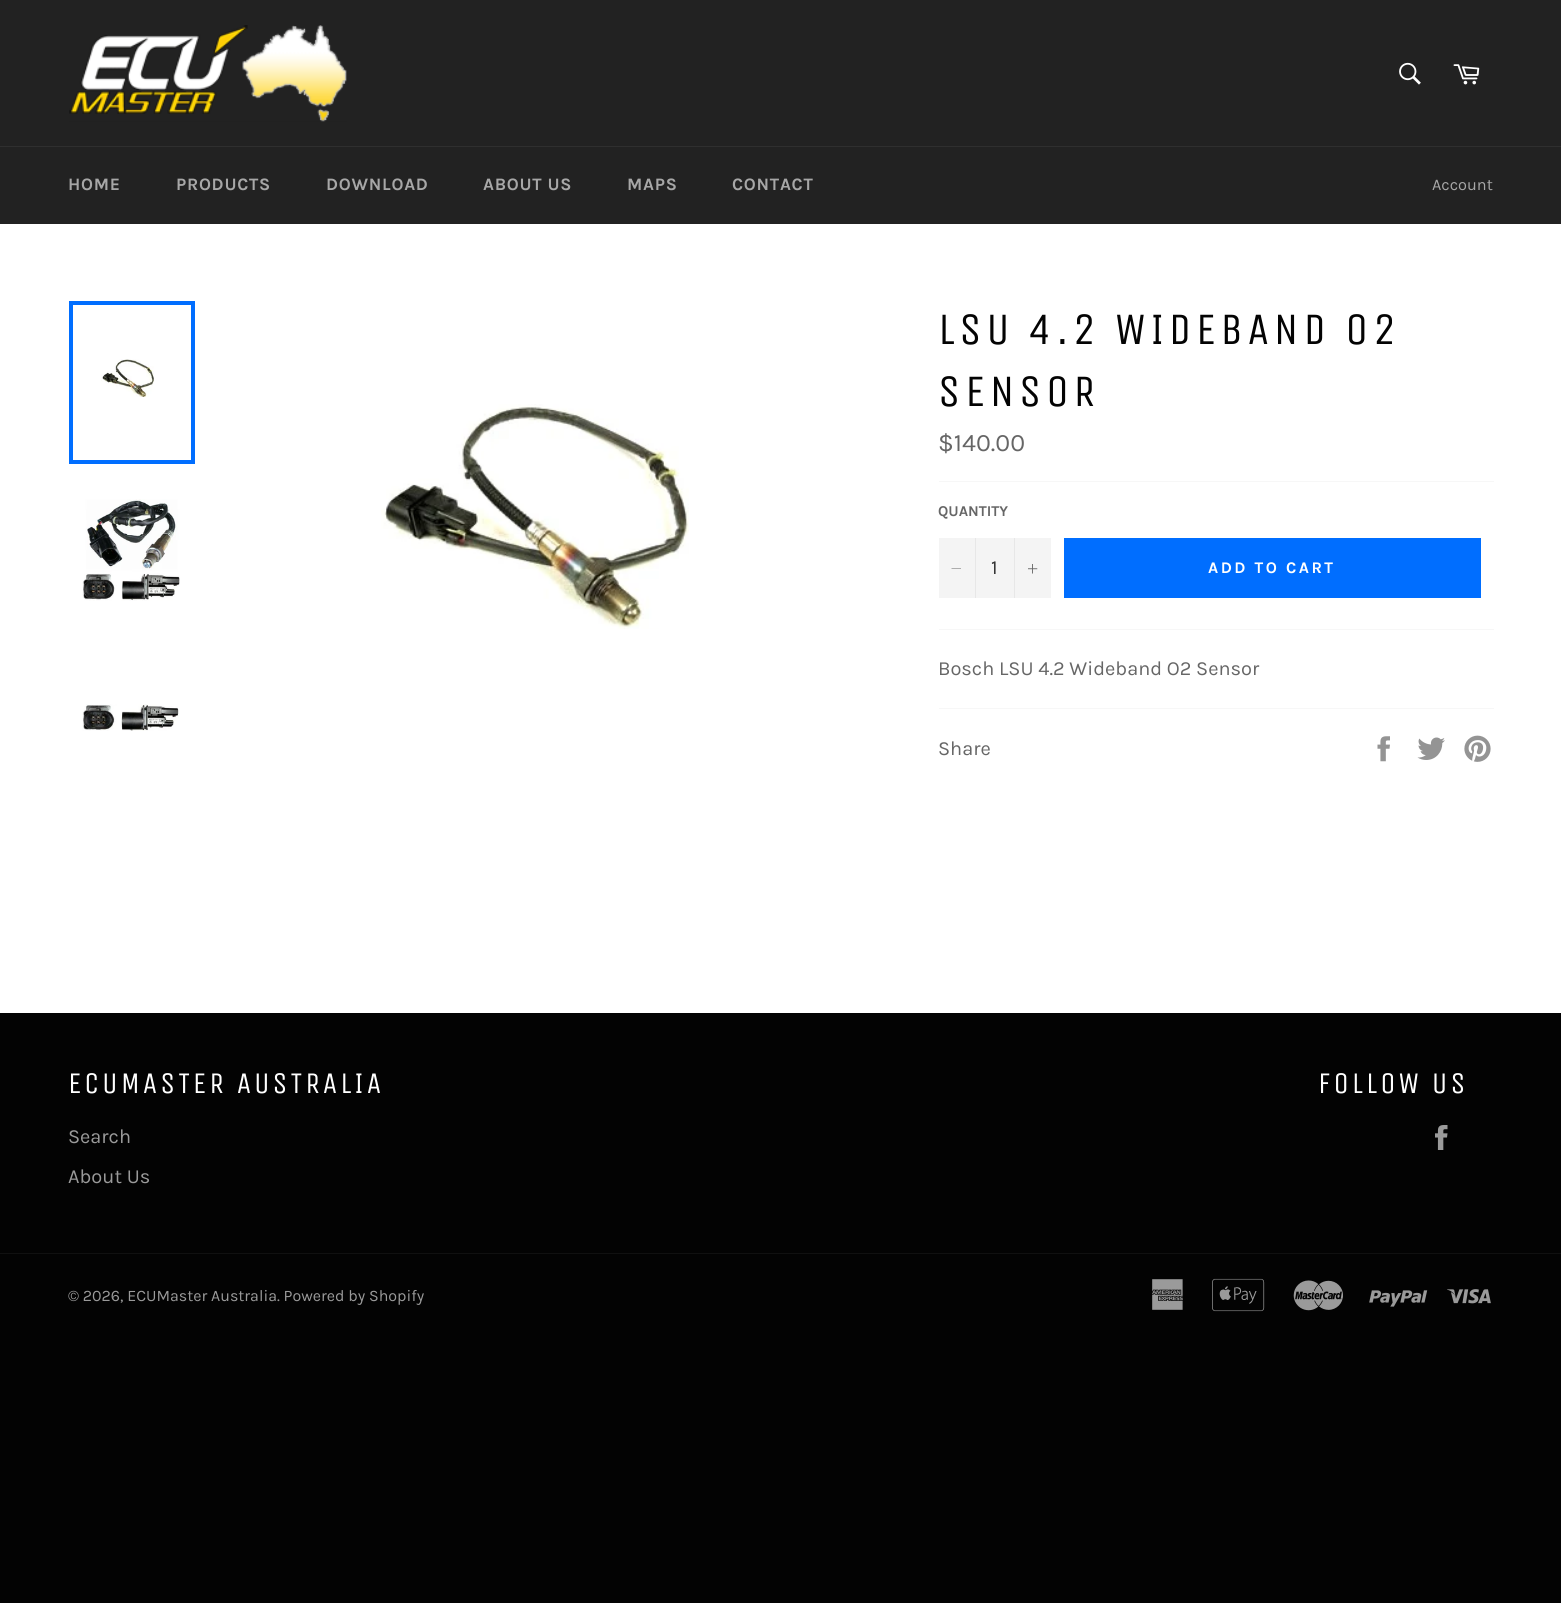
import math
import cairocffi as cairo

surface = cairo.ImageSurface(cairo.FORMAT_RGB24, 1561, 1603)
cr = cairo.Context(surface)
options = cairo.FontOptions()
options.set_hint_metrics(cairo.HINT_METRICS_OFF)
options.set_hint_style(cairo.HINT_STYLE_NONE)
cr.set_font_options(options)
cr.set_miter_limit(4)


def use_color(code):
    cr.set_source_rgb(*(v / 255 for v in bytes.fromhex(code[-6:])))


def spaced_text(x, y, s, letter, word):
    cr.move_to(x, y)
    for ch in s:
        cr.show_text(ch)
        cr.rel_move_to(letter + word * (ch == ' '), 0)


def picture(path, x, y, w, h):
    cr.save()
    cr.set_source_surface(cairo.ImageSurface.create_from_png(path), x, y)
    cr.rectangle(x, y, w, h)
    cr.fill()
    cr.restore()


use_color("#030303")
cr.paint()
use_color("#222222")
cr.rectangle(0, 0, 1561, 224)
cr.fill()
picture("img1.png", 69, 25, 278, 97)
picture("img2.png", 1399, 62, 22, 23)
picture("img3.png", 1453, 64, 27, 21)
use_color("#2f2f2f")
cr.rectangle(0, 146, 1561, 1)
cr.fill()
cr.select_font_face("Karla", cairo.FONT_SLANT_NORMAL, cairo.FONT_WEIGHT_BOLD)
cr.set_font_size(17.5)
use_color("#a7a7a7")
spaced_text(68, 190, "HOME", 0.75, 0)
spaced_text(176, 190, "PRODUCTS", 0.75, 0)
spaced_text(326, 190, "DOWNLOAD", 0.75, 0)
spaced_text(483, 190, "ABOUT US", 0.75, 0)
spaced_text(627, 190, "MAPS", 0.75, 0)
spaced_text(732, 190, "CONTACT", 0.75, 0)
cr.select_font_face("Karla")
cr.set_font_size(16.25)
cr.move_to(1432, 190)
cr.show_text("Account")
use_color("#ffffff")
cr.rectangle(0, 224, 1561, 789)
cr.fill()
picture("img4.png", 101, 359, 53, 38)
cr.rectangle(71, 303, 122, 159)
use_color("#006eff")
cr.set_line_width(4)
cr.stroke()
picture("img5.png", 82, 499, 98, 102)
picture("img6.png", 82, 704, 97, 27)
picture("img7.png", 381, 404, 308, 225)
cr.select_font_face("Unica One")
cr.set_font_size(45)
use_color("#030303")
spaced_text(938, 344, "LSU 4.2 WIDEBAND O2", 4.5, 0)
spaced_text(938, 406, "SENSOR", 4.5, 0)
cr.select_font_face("Karla")
cr.set_font_size(25)
use_color("#666666")
cr.move_to(938, 451)
cr.show_text("$140.00")
use_color("#f7f7f7")
cr.rectangle(939, 481, 555, 1)
cr.fill()
cr.select_font_face("Karla", cairo.FONT_SLANT_NORMAL, cairo.FONT_WEIGHT_BOLD)
cr.set_font_size(15)
use_color("#666666")
cr.move_to(938, 516)
cr.show_text("QUANTITY")
use_color("#f4f4f4")
cr.rectangle(939, 538, 112, 60)
cr.fill()
use_color("#e7e7e7")
cr.rectangle(975, 538, 1, 60)
cr.fill()
use_color("#666666")
cr.set_fill_rule(cairo.FILL_RULE_EVEN_ODD)
cr.new_path()
cr.move_to(961, 568.5)
cr.line_to(961, 569)
cr.line_to(951.5, 569)
cr.line_to(951.5, 568.5)
cr.close_path()
cr.fill()
cr.select_font_face("Karla")
cr.set_font_size(20)
use_color("#333333")
cr.move_to(991, 574)
cr.show_text("1")
use_color("#e7e7e7")
cr.rectangle(1014, 538, 1, 60)
cr.fill()
picture("img8.png", 1028, 564, 10, 10)
use_color("#006eff")
cr.rectangle(1064, 538, 417, 60)
cr.fill()
cr.select_font_face("Karla", cairo.FONT_SLANT_NORMAL, cairo.FONT_WEIGHT_BOLD)
cr.set_font_size(16.25)
use_color("#ffffff")
spaced_text(1208, 573, "ADD TO CART", 2.5, 0)
use_color("#f7f7f7")
cr.rectangle(939, 629, 555, 1)
cr.fill()
cr.select_font_face("Karla")
cr.set_font_size(20)
use_color("#666666")
cr.move_to(938, 675)
cr.show_text("Bosch LSU 4.2 Wideband O2 Sensor")
use_color("#f7f7f7")
cr.rectangle(939, 708, 555, 1)
cr.fill()
use_color("#666666")
cr.move_to(938, 755)
cr.show_text("Share")
picture("img9.png", 1377, 736, 13, 26)
picture("img10.png", 1417, 737, 28, 23)
picture("img11.png", 1464, 735, 27, 27)
cr.select_font_face("Unica One")
cr.set_font_size(30)
use_color("#ffffff")
spaced_text(68, 1093, "ECUMASTER AUSTRALIA", 3, 0)
cr.select_font_face("Karla")
cr.set_font_size(20)
use_color("#9a9a9a")
cr.move_to(68, 1143)
cr.show_text("Search")
cr.move_to(68, 1183)
cr.show_text("About Us")
cr.select_font_face("Unica One")
cr.set_font_size(30)
use_color("#ffffff")
spaced_text(1318, 1093, "FOLLOW US", 3, 0)
picture("img12.png", 1435, 1125, 13, 25)
use_color("#101010")
cr.rectangle(0, 1253, 1561, 1)
cr.fill()
cr.select_font_face("Karla")
cr.set_font_size(16)
use_color("#9a9a9a")
cr.move_to(68, 1301)
cr.show_text("© 2026, ECUMaster Australia. Powered by Shopify")
picture("img13.png", 1152, 1279, 31, 31)
picture("img14.png", 1212, 1278, 53, 34)
picture("img15.png", 1293, 1280, 50, 31)
picture("img16.png", 1369, 1290, 59, 17)
picture("img17.png", 1447, 1289, 44, 15)
surface.write_to_png("result.png")
